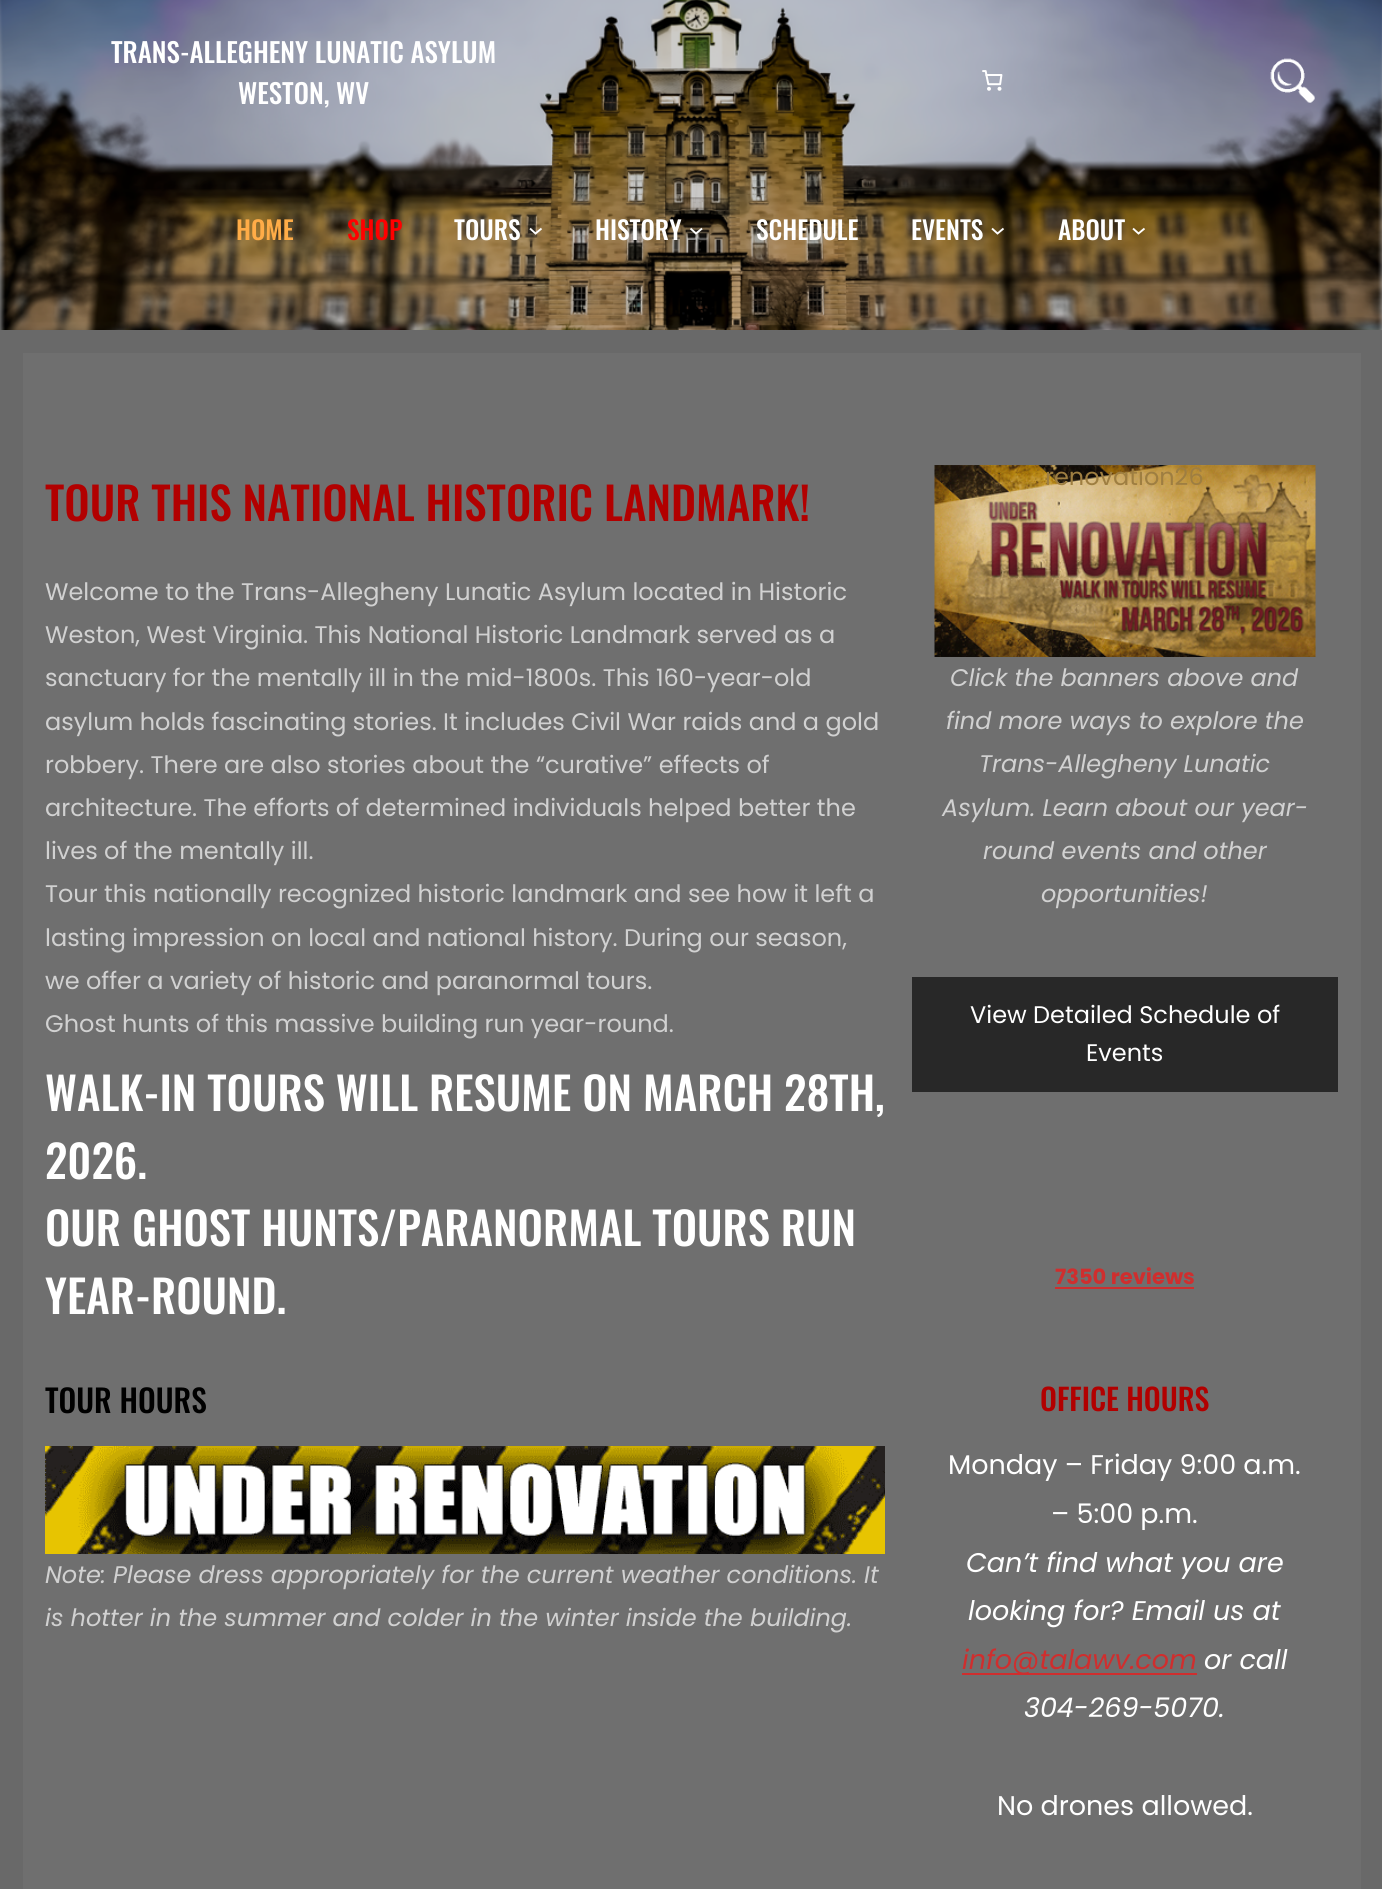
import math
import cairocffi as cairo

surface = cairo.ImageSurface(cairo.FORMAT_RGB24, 1382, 1889)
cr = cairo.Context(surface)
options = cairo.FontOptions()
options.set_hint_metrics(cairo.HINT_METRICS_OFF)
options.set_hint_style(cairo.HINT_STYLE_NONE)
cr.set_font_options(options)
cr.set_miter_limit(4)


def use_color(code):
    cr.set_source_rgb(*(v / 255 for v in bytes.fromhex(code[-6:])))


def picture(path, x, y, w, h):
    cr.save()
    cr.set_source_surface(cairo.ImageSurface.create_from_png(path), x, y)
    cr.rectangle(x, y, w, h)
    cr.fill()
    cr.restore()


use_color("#ffffff")
cr.paint()
picture("img1.png", 0, 0, 1382, 330)
cr.select_font_face("Oswald Medium")
cr.set_font_size(27)
use_color("#ffffff")
cr.move_to(111, 63)
cr.show_text("TRANS-ALLEGHENY LUNATIC ASYLUM")
cr.move_to(238, 104)
cr.show_text("WESTON, WV")
picture("img2.png", 982, 70, 21, 21)
picture("img3.png", 1270, 58, 45, 45)
cr.set_font_size(25.5)
use_color("#ffac47")
cr.move_to(236, 240)
cr.show_text("HOME")
use_color("#ff0000")
cr.move_to(347, 240)
cr.show_text("SHOP")
use_color("#ffffff")
cr.move_to(454, 240)
cr.show_text("TOURS")
cr.new_path()
cr.move_to(530, 228.5)
cr.line_to(535.5, 233.5)
cr.line_to(541.5, 228.5)
cr.set_line_width(1.9)
cr.stroke()
cr.move_to(595, 240)
cr.show_text("HISTORY")
cr.new_path()
cr.move_to(690.5, 228.5)
cr.line_to(696, 233.5)
cr.line_to(702, 228.5)
cr.stroke()
cr.move_to(756, 240)
cr.show_text("SCHEDULE")
cr.move_to(911, 240)
cr.show_text("EVENTS")
cr.new_path()
cr.move_to(992, 228.5)
cr.line_to(997.5, 233.5)
cr.line_to(1003.5, 228.5)
cr.stroke()
cr.move_to(1058, 240)
cr.show_text("ABOUT")
cr.new_path()
cr.move_to(1133, 228.5)
cr.line_to(1138.5, 233.5)
cr.line_to(1144.5, 228.5)
cr.stroke()
use_color("#696969")
cr.rectangle(0, 330, 1382, 1559)
cr.fill()
use_color("#6f6f6f")
cr.rectangle(23, 353, 1338, 1536)
cr.fill()
cr.set_font_size(45)
use_color("#b20000")
cr.move_to(45, 521)
cr.show_text("TOUR THIS NATIONAL HISTORIC LANDMARK!")
cr.select_font_face("Poppins")
cr.set_font_size(24)
use_color("#d1d1d1")
cr.move_to(45, 600)
cr.show_text("Welcome to the Trans-Allegheny Lunatic Asylum located in Historic")
cr.move_to(45, 643)
cr.show_text("Weston, West Virginia. This National Historic Landmark served as a")
cr.move_to(45, 686)
cr.show_text("sanctuary for the mentally ill in the mid-1800s. This 160-year-old")
cr.move_to(45, 730)
cr.show_text("asylum holds fascinating stories. It includes Civil War raids and a gold")
cr.move_to(45, 773)
cr.show_text("robbery. There are also stories about the “curative” effects of")
cr.move_to(45, 816)
cr.show_text("architecture. The efforts of determined individuals helped better the")
cr.move_to(45, 859)
cr.show_text("lives of the mentally ill.")
cr.move_to(45, 902)
cr.show_text("Tour this nationally recognized historic landmark and see how it left a")
cr.move_to(45, 946)
cr.show_text("lasting impression on local and national history. During our season,")
cr.move_to(45, 989)
cr.show_text("we offer a variety of historic and paranormal tours.")
cr.move_to(45, 1032)
cr.show_text("Ghost hunts of this massive building run year-round.")
cr.select_font_face("Oswald Medium")
cr.set_font_size(45)
use_color("#ffffff")
cr.move_to(45, 1111)
cr.show_text("WALK-IN TOURS WILL RESUME ON MARCH 28TH,")
cr.move_to(45, 1179)
cr.show_text("2026.")
cr.move_to(45, 1246)
cr.show_text("OUR GHOST HUNTS/PARANORMAL TOURS RUN")
cr.move_to(45, 1314)
cr.show_text("YEAR-ROUND.")
cr.set_font_size(31.5)
use_color("#000000")
cr.move_to(45, 1413)
cr.show_text("TOUR HOURS")
picture("img4.png", 45, 1446, 840, 108)
cr.select_font_face("Poppins", cairo.FONT_SLANT_ITALIC)
cr.set_font_size(24)
use_color("#d1d1d1")
cr.move_to(45, 1583)
cr.show_text("Note: Please dress appropriately for the current weather conditions. It")
cr.move_to(45, 1626)
cr.show_text("is hotter in the summer and colder in the winter inside the building.")
picture("img5.png", 934, 465, 382, 192)
cr.select_font_face("Poppins")
use_color("#9e7e41")
cr.move_to(1045, 485)
cr.show_text("renovation26")
cr.select_font_face("Poppins", cairo.FONT_SLANT_ITALIC)
use_color("#d1d1d1")
cr.move_to(950, 686)
cr.show_text("Click the banners above and")
cr.move_to(946, 729)
cr.show_text("find more ways to explore the")
cr.move_to(979, 772)
cr.show_text("Trans-Allegheny Lunatic")
cr.move_to(942, 816)
cr.show_text("Asylum. Learn about our year-")
cr.move_to(983, 859)
cr.show_text("round events and other")
cr.move_to(1041, 902)
cr.show_text("opportunities!")
use_color("#282828")
cr.rectangle(912, 977, 426, 115)
cr.fill()
cr.select_font_face("Poppins")
use_color("#ffffff")
cr.move_to(970, 1023)
cr.show_text("View Detailed Schedule of")
cr.move_to(1086, 1061)
cr.show_text("Events")
cr.select_font_face("Poppins", cairo.FONT_SLANT_NORMAL, cairo.FONT_WEIGHT_BOLD)
cr.set_font_size(21)
use_color("#cf2e2e")
cr.move_to(1055, 1284)
cr.show_text("7350 reviews")
cr.rectangle(1055, 1287, 139, 2)
cr.fill()
cr.select_font_face("Oswald Medium")
cr.set_font_size(30)
use_color("#b20000")
cr.move_to(1040, 1411)
cr.show_text("OFFICE HOURS")
cr.select_font_face("Poppins")
cr.set_font_size(27)
use_color("#ffffff")
cr.move_to(948, 1474)
cr.show_text("Monday – Friday 9:00 a.m.")
cr.move_to(1051, 1523)
cr.show_text("– 5:00 p.m.")
cr.select_font_face("Poppins", cairo.FONT_SLANT_ITALIC)
cr.move_to(966, 1572)
cr.show_text("Can’t find what you are")
cr.move_to(968, 1620)
cr.show_text("looking for? Email us at")
use_color("#cf2e2e")
cr.rectangle(962, 1673, 235, 2)
cr.fill()
cr.move_to(962, 1669)
cr.show_text("info@talawv.com")
use_color("#ffffff")
cr.move_to(1204, 1669)
cr.show_text("or call")
cr.move_to(1024, 1717)
cr.show_text("304-269-5070.")
cr.select_font_face("Poppins")
cr.move_to(997, 1815)
cr.show_text("No drones allowed.")
surface.write_to_png("result.png")
